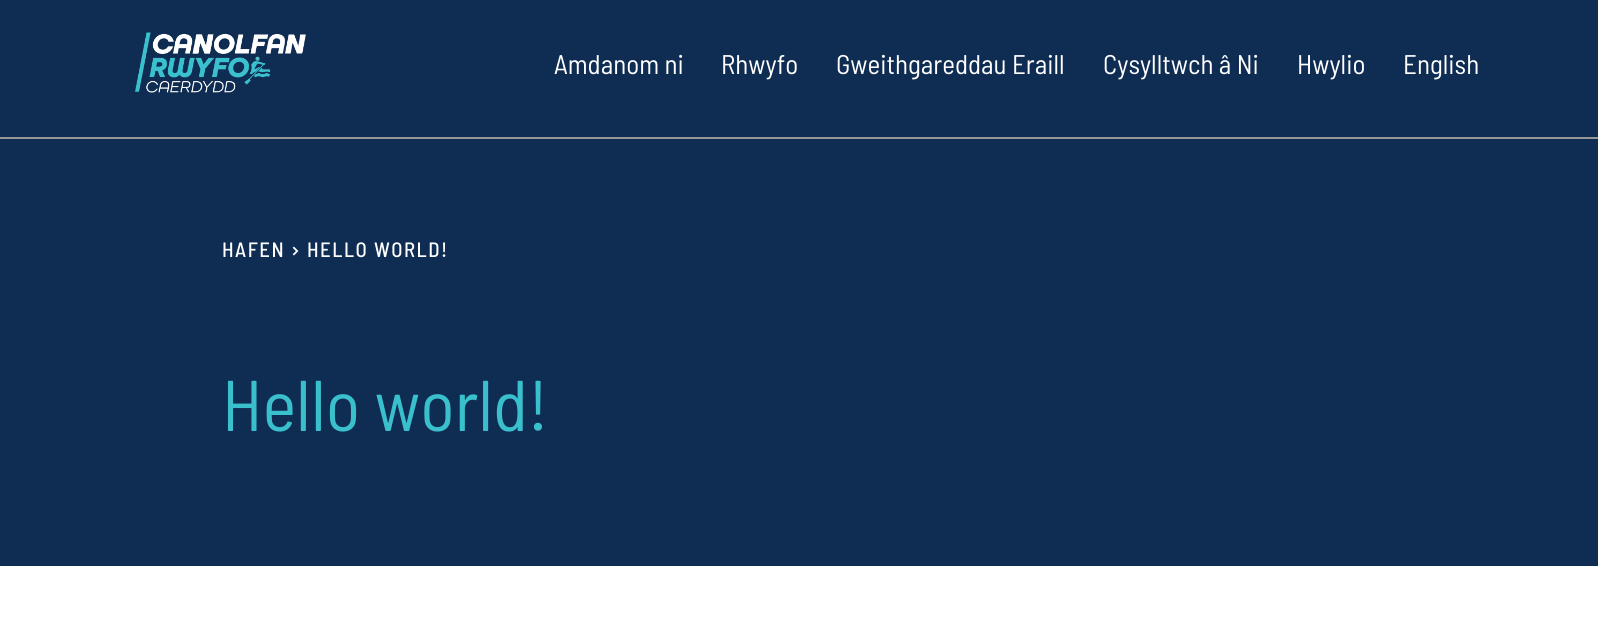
import math
import cairocffi as cairo

surface = cairo.ImageSurface(cairo.FORMAT_RGB24, 1598, 631)
cr = cairo.Context(surface)
options = cairo.FontOptions()
options.set_hint_metrics(cairo.HINT_METRICS_OFF)
options.set_hint_style(cairo.HINT_STYLE_NONE)
cr.set_font_options(options)
cr.set_miter_limit(4)


def use_color(code):
    cr.set_source_rgb(*(v / 255 for v in bytes.fromhex(code[-6:])))


def spaced_text(x, y, s, letter, word):
    cr.move_to(x, y)
    for ch in s:
        cr.show_text(ch)
        cr.rel_move_to(letter + word * (ch == ' '), 0)


def picture(path, x, y, w, h):
    cr.save()
    cr.set_source_surface(cairo.ImageSurface.create_from_png(path), x, y)
    cr.rectangle(x, y, w, h)
    cr.fill()
    cr.restore()


use_color("#ffffff")
cr.paint()
use_color("#0f2c52")
cr.rectangle(0, 0, 1598, 137)
cr.fill()
picture("img1.png", 135, 32, 171, 61)
cr.select_font_face("Barlow Semi Condensed")
cr.set_font_size(27)
use_color("#ffffff")
cr.move_to(554, 74)
cr.show_text("Amdanom ni")
cr.move_to(721, 74)
cr.show_text("Rhwyfo")
cr.move_to(836, 74)
cr.show_text("Gweithgareddau Eraill")
cr.move_to(1103, 74)
cr.show_text("Cysylltwch â Ni")
cr.move_to(1297, 74)
cr.show_text("Hwylio")
cr.move_to(1403, 74)
cr.show_text("English")
use_color("#0f2c52")
cr.rectangle(0, 139, 1598, 427)
cr.fill()
use_color("#979797")
cr.rectangle(0, 137, 1598, 2)
cr.fill()
cr.select_font_face("Barlow Semi Condensed Medium")
cr.set_font_size(20.75)
use_color("#ffffff")
spaced_text(222, 257, "HAFEN", 1.5, 0)
picture("img2.png", 292, 246, 7, 10)
spaced_text(307, 257, "HELLO WORLD!", 1.5, 0)
cr.select_font_face("Barlow Semi Condensed")
cr.set_font_size(71.75)
use_color("#39c0cc")
cr.move_to(222, 431)
cr.show_text("Hello world!")
surface.write_to_png("result.png")
